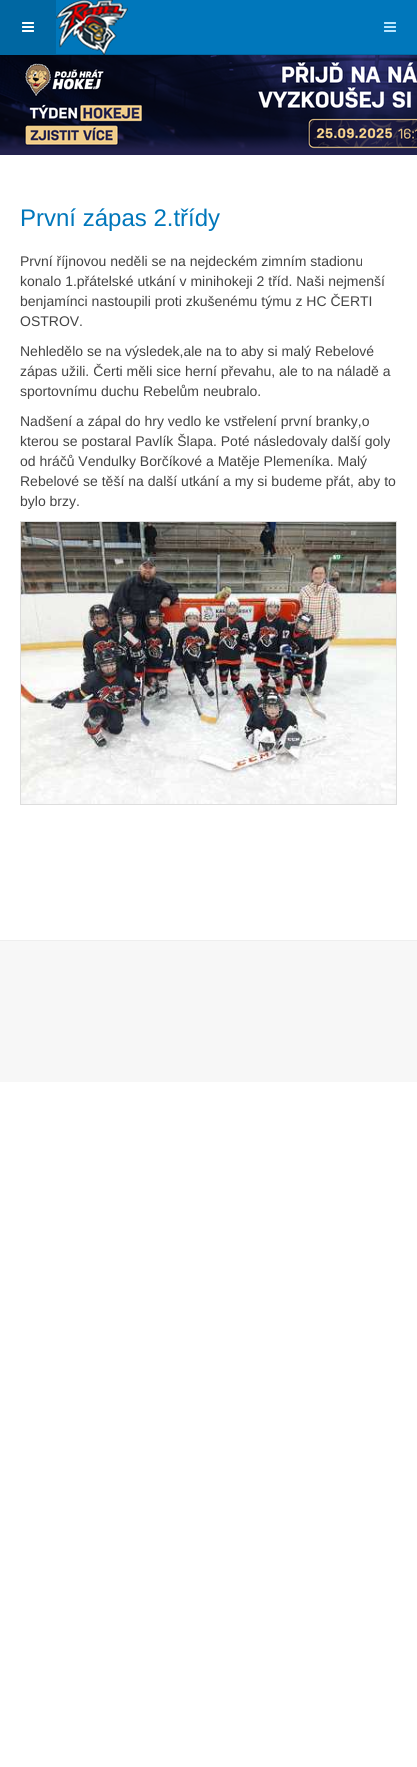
import math
import cairocffi as cairo

surface = cairo.ImageSurface(cairo.FORMAT_RGB24, 417, 1767)
cr = cairo.Context(surface)
options = cairo.FontOptions()
options.set_hint_metrics(cairo.HINT_METRICS_OFF)
options.set_hint_style(cairo.HINT_STYLE_NONE)
cr.set_font_options(options)
cr.set_miter_limit(4)


def use_color(code):
    cr.set_source_rgb(*(v / 255 for v in bytes.fromhex(code[-6:])))


def picture(path, x, y, w, h):
    cr.save()
    cr.set_source_surface(cairo.ImageSurface.create_from_png(path), x, y)
    cr.rectangle(x, y, w, h)
    cr.fill()
    cr.restore()


use_color("#ffffff")
cr.paint()
use_color("#0077bb")
cr.rectangle(56, 0, 361, 54)
cr.fill()
use_color("#0067a2")
cr.rectangle(56, 54, 361, 1)
cr.fill()
cr.rectangle(0, 0, 56, 55)
cr.fill()
picture("img1.png", 56, 0, 72, 55)
picture("img2.png", 384, 22, 12, 10)
picture("img3.png", 22, 22, 12, 10)
picture("img4.png", 0, 55, 417, 100)
cr.select_font_face("Liberation Sans")
cr.set_font_size(24)
use_color("#0077bb")
cr.move_to(20, 226)
cr.show_text("První zápas 2.třídy")
cr.set_font_size(14)
use_color("#444444")
cr.move_to(20, 266)
cr.show_text("První říjnovou neděli se na nejdeckém zimním stadionu")
cr.move_to(20, 286)
cr.show_text("konalo 1.přátelské utkání v minihokeji 2 tříd. Naši nejmenší")
cr.move_to(20, 306)
cr.show_text("benjamínci nastoupili proti zkušenému týmu z HC ČERTI")
cr.move_to(20, 326)
cr.show_text("OSTROV.")
cr.move_to(20, 356)
cr.show_text("Nehledělo se na výsledek,ale na to aby si malý Rebelové")
cr.move_to(20, 376)
cr.show_text("zápas užili. Čerti měli sice herní převahu, ale to na náladě a")
cr.move_to(20, 396)
cr.show_text("sportovnímu duchu Rebelům neubralo.")
cr.move_to(20, 426)
cr.show_text("Nadšení a zápal do hry vedlo ke vstřelení první branky,o")
cr.move_to(20, 446)
cr.show_text("kterou se postaral Pavlík Šlapa. Poté následovaly další goly")
cr.move_to(20, 466)
cr.show_text("od hráčů Vendulky Borčíkové a Matěje Plemeníka. Malý")
cr.move_to(20, 486)
cr.show_text("Rebelové se těší na další utkání a my si budeme přát, aby to")
cr.move_to(20, 506)
cr.show_text("bylo brzy.")
cr.rectangle(20.5, 521.5, 376, 283)
use_color("#dddddd")
cr.set_line_width(1)
cr.stroke()
picture("img5.png", 21, 522, 375, 282)
use_color("#f7f7f7")
cr.rectangle(0, 941, 417, 141)
cr.fill()
use_color("#eeeeee")
cr.rectangle(0, 940, 417, 1)
cr.fill()
surface.write_to_png("result.png")
